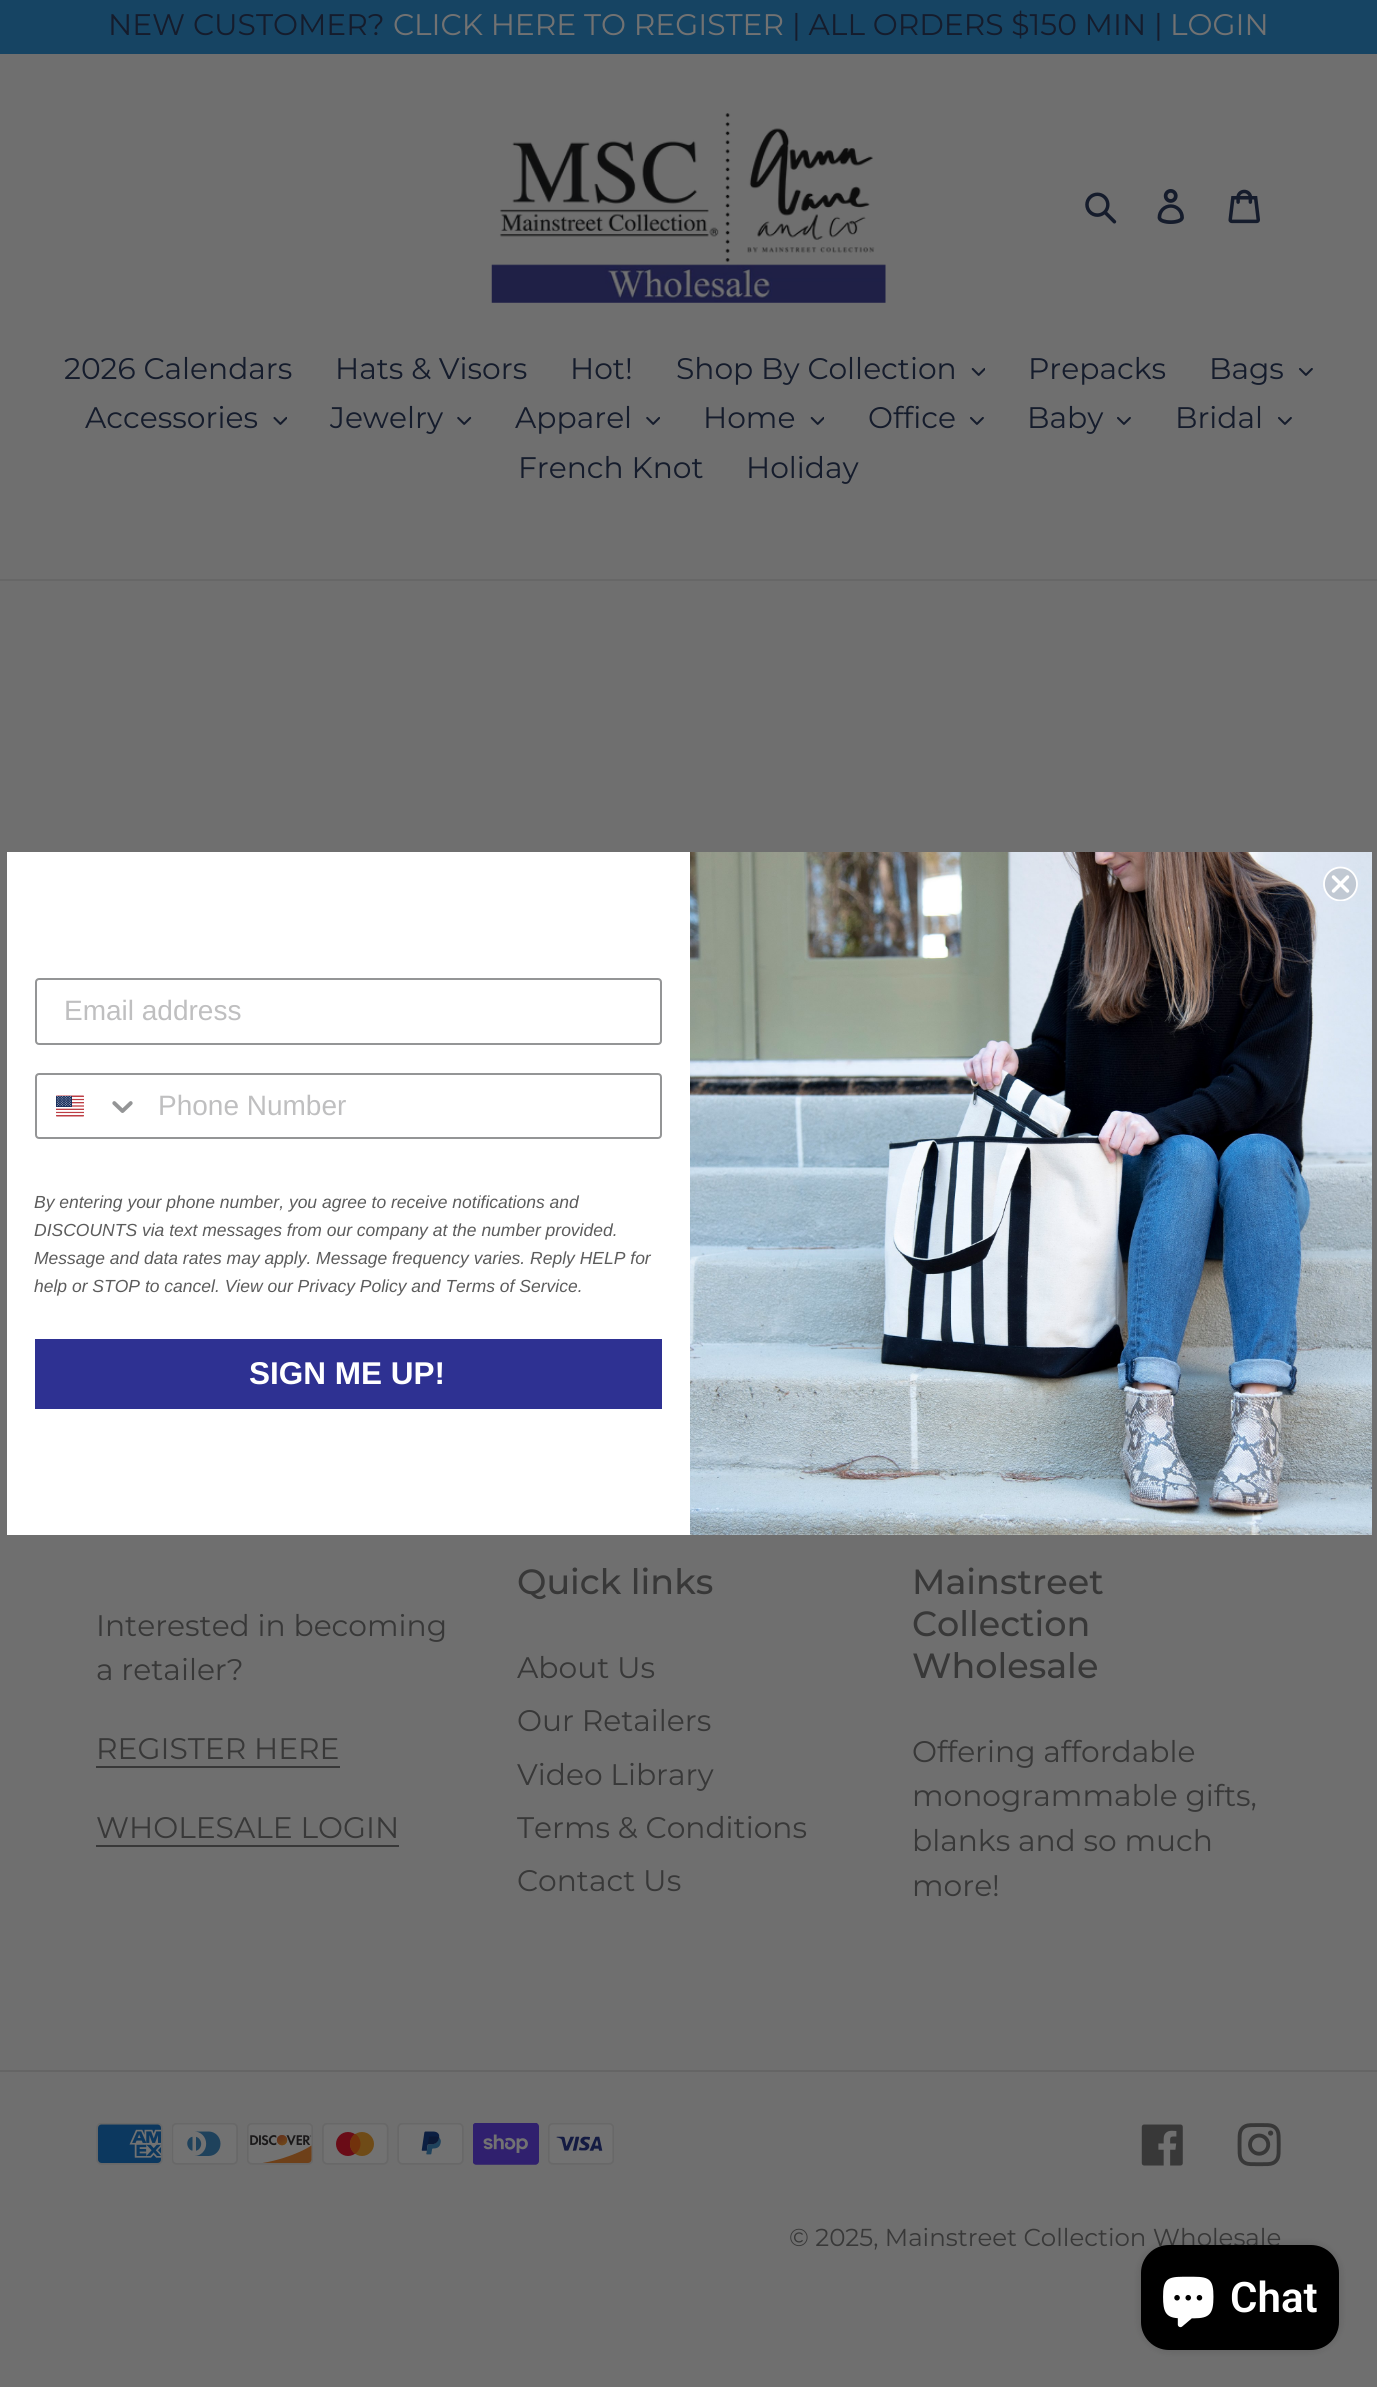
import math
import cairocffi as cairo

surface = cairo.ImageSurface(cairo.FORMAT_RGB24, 1377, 2387)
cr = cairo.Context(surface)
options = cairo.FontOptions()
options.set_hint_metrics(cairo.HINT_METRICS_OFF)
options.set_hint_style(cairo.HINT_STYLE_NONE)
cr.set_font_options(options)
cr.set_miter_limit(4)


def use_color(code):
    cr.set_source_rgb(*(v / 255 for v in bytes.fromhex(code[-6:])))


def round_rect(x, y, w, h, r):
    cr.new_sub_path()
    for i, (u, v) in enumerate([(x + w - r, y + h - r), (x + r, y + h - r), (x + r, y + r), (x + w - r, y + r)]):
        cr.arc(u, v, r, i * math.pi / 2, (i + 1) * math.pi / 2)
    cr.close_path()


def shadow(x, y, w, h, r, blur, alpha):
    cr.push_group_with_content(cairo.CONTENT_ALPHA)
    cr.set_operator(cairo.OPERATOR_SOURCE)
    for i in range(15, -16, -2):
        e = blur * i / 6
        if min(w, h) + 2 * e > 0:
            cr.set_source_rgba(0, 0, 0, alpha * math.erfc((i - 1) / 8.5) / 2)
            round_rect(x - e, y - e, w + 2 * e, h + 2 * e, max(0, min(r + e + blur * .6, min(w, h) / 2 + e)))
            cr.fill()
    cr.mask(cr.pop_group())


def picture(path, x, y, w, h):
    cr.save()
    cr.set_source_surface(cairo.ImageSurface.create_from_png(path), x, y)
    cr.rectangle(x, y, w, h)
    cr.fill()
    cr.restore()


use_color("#6f6f6f")
cr.paint()
use_color("#164463")
cr.rectangle(0, 0, 1377, 54)
cr.fill()
cr.select_font_face("Montserrat")
cr.set_font_size(29.75)
use_color("#151c2c")
cr.move_to(108, 35)
cr.show_text("NEW CUSTOMER?")
use_color("#727272")
cr.move_to(393, 35)
cr.show_text("CLICK HERE TO REGISTER")
use_color("#151c2c")
cr.move_to(792, 35)
cr.show_text("| ALL ORDERS $150 MIN |")
use_color("#727272")
cr.move_to(1170, 35)
cr.show_text("LOGIN")
picture("img1.png", 491, 113, 395, 190)
picture("img2.png", 1085, 192, 32, 32)
picture("img3.png", 1157, 189, 27, 35)
picture("img4.png", 1228, 189, 32, 35)
use_color("#676767")
cr.rectangle(0, 579, 1377, 2)
cr.fill()
use_color("#151c2c")
cr.move_to(64, 379)
cr.show_text("2026 Calendars")
cr.move_to(335, 379)
cr.show_text("Hats & Visors")
cr.move_to(570, 379)
cr.show_text("Hot!")
cr.move_to(676, 379)
cr.show_text("Shop By Collection")
picture("img5.png", 971, 367, 14, 9)
cr.move_to(1028, 379)
cr.show_text("Prepacks")
cr.move_to(1209, 379)
cr.show_text("Bags")
picture("img6.png", 1299, 368, 14, 8)
cr.move_to(85, 428)
cr.show_text("Accessories")
picture("img7.png", 273, 416, 14, 9)
cr.move_to(330, 428)
cr.show_text("Jewelry")
picture("img8.png", 457, 416, 15, 9)
cr.move_to(515, 428)
cr.show_text("Apparel")
picture("img9.png", 646, 416, 14, 9)
cr.move_to(703, 428)
cr.show_text("Home")
picture("img5.png", 810, 416, 14, 9)
cr.move_to(868, 428)
cr.show_text("Office")
picture("img6.png", 970, 417, 14, 8)
cr.move_to(1027, 428)
cr.show_text("Baby")
picture("img6.png", 1117, 417, 14, 8)
cr.move_to(1175, 428)
cr.show_text("Bridal")
picture("img6.png", 1278, 417, 14, 8)
cr.move_to(518, 478)
cr.show_text("French Knot")
cr.move_to(746, 478)
cr.show_text("Holiday")
use_color("#ffffff")
cr.rectangle(7, 852, 1365, 683)
cr.fill()
picture("img12.png", 690, 852, 682, 683)
cr.set_source_rgba(0.706, 0.733, 0.765, 0.65)
cr.arc(1340.5, 884, 16.5, 0, 2 * math.pi)
cr.fill()
cr.save()
cr.rectangle(1323, 866, 35, 35)
cr.clip()
cr.arc(1340.5, 884, 16.5, 0, 2 * math.pi)
use_color("#ffffff")
cr.set_line_width(1.8)
cr.stroke()
cr.restore()
cr.new_path()
cr.move_to(1333.5, 877)
cr.line_to(1347.5, 891)
cr.move_to(1333.5, 891)
cr.line_to(1347.5, 877)
cr.close_path()
use_color("#ffffff")
cr.set_line_width(3.5)
cr.set_line_cap(cairo.LINE_CAP_ROUND)
cr.set_line_join(cairo.LINE_JOIN_ROUND)
cr.stroke()
round_rect(36, 979, 625, 65, 3)
use_color("#949596")
cr.set_line_width(2)
cr.set_line_cap(cairo.LINE_CAP_BUTT)
cr.set_line_join(cairo.LINE_JOIN_MITER)
cr.stroke()
cr.select_font_face("Liberation Sans")
cr.set_font_size(28)
use_color("#bfbfc0")
cr.move_to(64, 1020)
cr.show_text("Email address")
round_rect(36, 1074, 625, 64, 3)
use_color("#949596")
cr.stroke()
picture("img10.png", 56, 1095, 28, 22)
picture("img11.png", 112, 1101, 21, 12)
use_color("#bfbfc0")
cr.move_to(158, 1115)
cr.show_text("Phone Number")
cr.select_font_face("Liberation Sans", cairo.FONT_SLANT_ITALIC)
cr.set_font_size(17.5)
use_color("#5c5c5c")
cr.move_to(34, 1208)
cr.show_text("By entering your phone number, you agree to receive notifications and")
cr.move_to(34, 1236)
cr.show_text("DISCOUNTS via text messages from our company at the number provided.")
cr.move_to(34, 1264)
cr.show_text("Message and data rates may apply. Message frequency varies. Reply HELP for")
cr.move_to(34, 1292)
cr.show_text("help or STOP to cancel. View our Privacy Policy and Terms of Service.")
use_color("#2e3192")
cr.rectangle(35, 1339, 627, 70)
cr.fill()
cr.select_font_face("Liberation Sans", cairo.FONT_SLANT_NORMAL, cairo.FONT_WEIGHT_BOLD)
cr.set_font_size(31.5)
use_color("#ffffff")
cr.move_to(249, 1384)
cr.show_text("SIGN ME UP!")
cr.select_font_face("Montserrat")
cr.set_font_size(29.75)
use_color("#383838")
cr.move_to(96, 1636)
cr.show_text("Interested in becoming")
cr.move_to(96, 1680)
cr.show_text("a retailer?")
cr.move_to(96, 1759)
cr.show_text("REGISTER HERE")
cr.rectangle(96, 1766, 244, 2)
cr.fill()
cr.move_to(96, 1838)
cr.show_text("WHOLESALE LOGIN")
cr.rectangle(96, 1845, 303, 2)
cr.fill()
cr.select_font_face("Montserrat Medium")
cr.set_font_size(35)
cr.move_to(517, 1594)
cr.show_text("Quick links")
cr.select_font_face("Montserrat")
cr.set_font_size(29.75)
cr.move_to(517, 1678)
cr.show_text("About Us")
cr.move_to(517, 1731)
cr.show_text("Our Retailers")
cr.move_to(517, 1785)
cr.show_text("Video Library")
cr.move_to(517, 1838)
cr.show_text("Terms & Conditions")
cr.move_to(517, 1891)
cr.show_text("Contact Us")
cr.select_font_face("Montserrat Medium")
cr.set_font_size(35)
cr.move_to(912, 1594)
cr.show_text("Mainstreet")
cr.move_to(912, 1636)
cr.show_text("Collection")
cr.move_to(912, 1678)
cr.show_text("Wholesale")
cr.select_font_face("Montserrat")
cr.set_font_size(29.75)
cr.move_to(912, 1762)
cr.show_text("Offering affordable")
cr.move_to(912, 1806)
cr.show_text("monogrammable gifts,")
cr.move_to(912, 1851)
cr.show_text("blanks and so much")
cr.move_to(912, 1896)
cr.show_text("more!")
use_color("#656565")
cr.rectangle(0, 2070, 1377, 2)
cr.fill()
picture("img13.png", 96, 2123, 67, 42)
picture("img14.png", 172, 2123, 66, 42)
picture("img15.png", 247, 2123, 66, 42)
picture("img16.png", 322, 2123, 67, 42)
picture("img17.png", 397, 2123, 67, 42)
picture("img18.png", 473, 2123, 66, 42)
picture("img19.png", 548, 2123, 66, 42)
picture("img20.png", 1141, 2124, 42, 42)
picture("img21.png", 1237, 2123, 44, 44)
cr.set_font_size(24.5)
use_color("#383838")
cr.move_to(789, 2246)
cr.show_text("© 2025, Mainstreet Collection Wholesale")
use_color("#000000")
shadow(1141, 2245, 198, 105, 28, 4.5, 0.15)
use_color("#000000")
round_rect(1141, 2245, 198, 105, 28)
cr.fill()
picture("img22.png", 1163, 2276, 51, 52)
cr.select_font_face("Roboto SemiBold")
cr.set_font_size(42)
use_color("#ffffff")
cr.move_to(1230, 2312)
cr.show_text("Chat")
surface.write_to_png("result.png")
